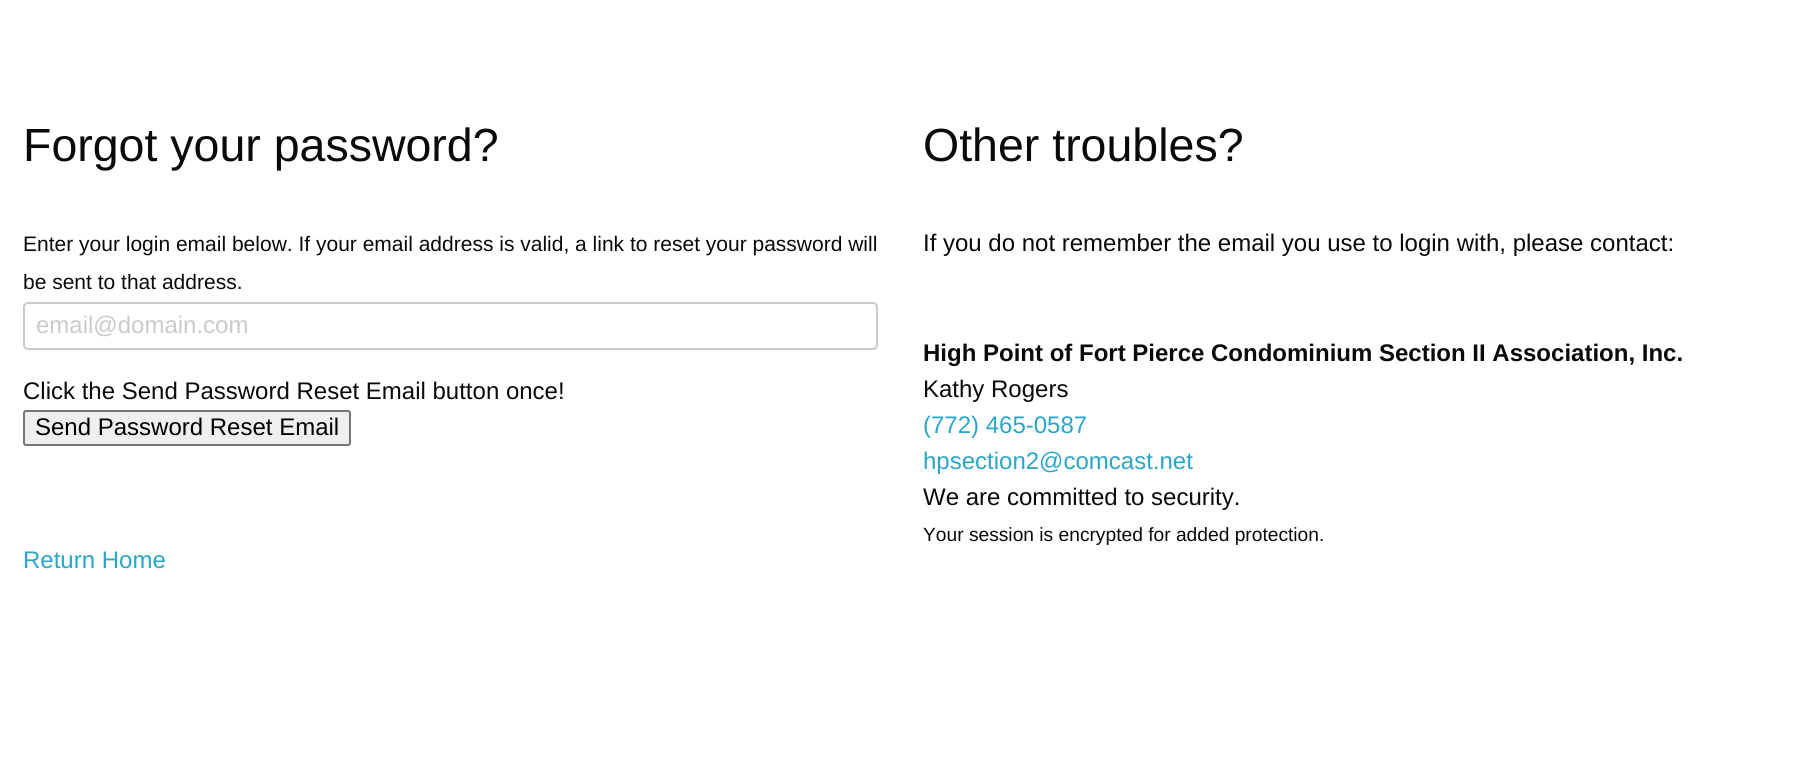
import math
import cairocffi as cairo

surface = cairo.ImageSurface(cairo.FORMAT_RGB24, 1799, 780)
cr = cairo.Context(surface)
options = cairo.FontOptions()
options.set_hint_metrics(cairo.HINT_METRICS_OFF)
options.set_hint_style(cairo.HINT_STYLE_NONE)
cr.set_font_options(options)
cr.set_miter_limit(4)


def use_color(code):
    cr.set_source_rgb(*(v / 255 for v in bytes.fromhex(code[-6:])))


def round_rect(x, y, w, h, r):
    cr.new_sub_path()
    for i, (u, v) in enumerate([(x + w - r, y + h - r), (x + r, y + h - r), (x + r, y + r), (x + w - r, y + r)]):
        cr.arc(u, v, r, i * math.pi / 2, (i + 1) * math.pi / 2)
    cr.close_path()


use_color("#ffffff")
cr.paint()
cr.select_font_face("Liberation Sans")
cr.set_font_size(46.5)
use_color("#0a0a0a")
cr.move_to(23, 161)
cr.show_text("Forgot your password?")
cr.set_font_size(21)
cr.move_to(23, 251)
cr.show_text("Enter your login email below. If your email address is valid, a link to reset your password will")
cr.move_to(23, 289)
cr.show_text("be sent to that address.")
round_rect(24, 303, 853, 46, 4)
use_color("#cacaca")
cr.stroke()
cr.set_font_size(24)
cr.move_to(36, 333)
cr.show_text("email@domain.com")
use_color("#0a0a0a")
cr.move_to(23, 399)
cr.show_text("Click the Send Password Reset Email button once!")
use_color("#efefef")
round_rect(24, 411, 326, 34, 2)
cr.fill_preserve()
use_color("#767676")
cr.stroke()
use_color("#000000")
cr.move_to(35, 435)
cr.show_text("Send Password Reset Email")
use_color("#2ba6cb")
cr.move_to(23, 568)
cr.show_text("Return Home")
cr.set_font_size(46.5)
use_color("#0a0a0a")
cr.move_to(923, 161)
cr.show_text("Other troubles?")
cr.set_font_size(24)
cr.move_to(923, 251)
cr.show_text("If you do not remember the email you use to login with, please contact:")
cr.select_font_face("Liberation Sans", cairo.FONT_SLANT_NORMAL, cairo.FONT_WEIGHT_BOLD)
cr.move_to(923, 361)
cr.show_text("High Point of Fort Pierce Condominium Section II Association, Inc.")
cr.select_font_face("Liberation Sans")
cr.move_to(923, 397)
cr.show_text("Kathy Rogers")
use_color("#2ba6cb")
cr.move_to(923, 433)
cr.show_text("(772) 465-0587")
cr.move_to(923, 469)
cr.show_text("hpsection2@comcast.net")
use_color("#0a0a0a")
cr.move_to(923, 505)
cr.show_text("We are committed to security.")
cr.set_font_size(19.2)
cr.move_to(923, 541)
cr.show_text("Your session is encrypted for added protection.")
surface.write_to_png("result.png")
